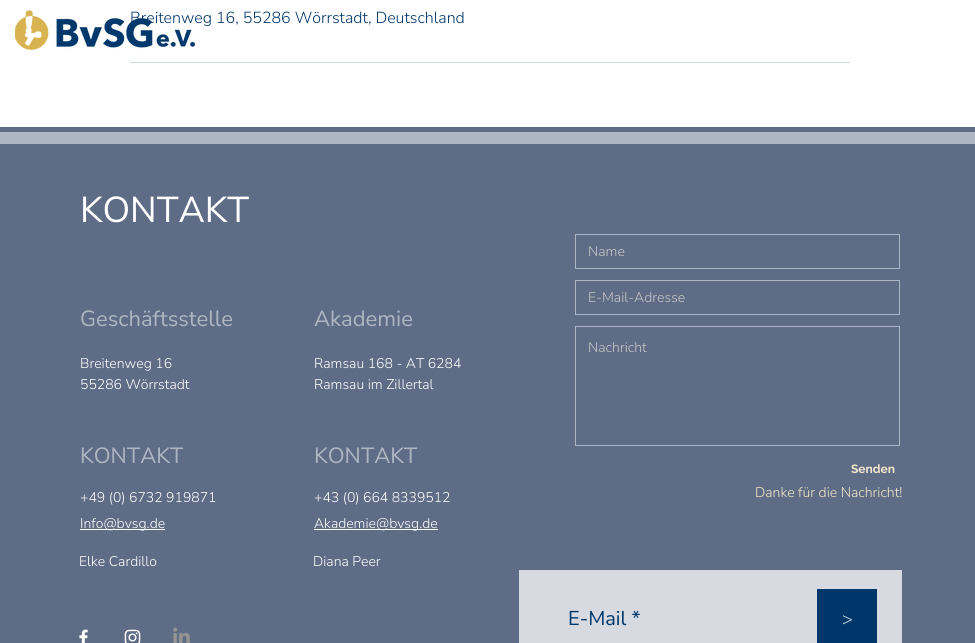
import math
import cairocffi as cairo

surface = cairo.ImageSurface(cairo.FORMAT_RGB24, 975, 643)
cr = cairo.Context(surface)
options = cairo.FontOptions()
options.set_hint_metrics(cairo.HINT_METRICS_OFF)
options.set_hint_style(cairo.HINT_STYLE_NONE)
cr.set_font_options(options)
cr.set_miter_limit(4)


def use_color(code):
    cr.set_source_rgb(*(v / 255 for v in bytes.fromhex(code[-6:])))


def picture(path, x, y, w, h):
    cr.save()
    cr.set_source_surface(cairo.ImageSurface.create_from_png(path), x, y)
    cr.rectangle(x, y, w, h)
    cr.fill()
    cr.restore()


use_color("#ffffff")
cr.paint()
cr.select_font_face("Nunito Sans Light")
cr.set_font_size(16)
use_color("#00376b")
cr.move_to(130, 23)
cr.show_text("Breitenweg 16, 55286 Wörrstadt, Deutschland")
picture("img1.png", 15, 10, 180, 40)
use_color("#ccd7e1")
cr.rectangle(130, 62, 720, 1)
cr.fill()
use_color("#afb6c3")
cr.rectangle(0, 132, 975, 12)
cr.fill()
use_color("#5e6c86")
cr.rectangle(0, 127, 975, 5)
cr.fill()
cr.rectangle(0, 144, 975, 499)
cr.fill()
cr.select_font_face("Nunito Sans")
cr.set_font_size(36)
use_color("#ffffff")
cr.move_to(80, 222)
cr.show_text("KONTAKT")
cr.set_font_size(22)
use_color("#afb6c3")
cr.move_to(80, 326)
cr.show_text("Geschäftsstelle")
cr.select_font_face("Nunito Sans Light")
cr.set_font_size(14)
use_color("#ffffff")
cr.move_to(80, 368)
cr.show_text("Breitenweg 16")
cr.move_to(80, 389)
cr.show_text("55286 Wörrstadt")
cr.select_font_face("Nunito Sans")
cr.set_font_size(22)
use_color("#afb6c3")
cr.move_to(80, 463)
cr.show_text("KONTAKT")
cr.select_font_face("Nunito Sans Light")
cr.set_font_size(14)
use_color("#ffffff")
cr.move_to(80, 502)
cr.show_text("+49 (0) 6732 919871")
cr.rectangle(80, 529, 85, 1)
cr.fill()
cr.move_to(80, 528)
cr.show_text("Info@bvsg.de")
cr.select_font_face("Nunito Sans")
cr.set_font_size(22)
use_color("#afb6c3")
cr.move_to(314, 326)
cr.show_text("Akademie")
cr.select_font_face("Nunito Sans Light")
cr.set_font_size(14)
use_color("#ffffff")
cr.move_to(314, 368)
cr.show_text("Ramsau 168 - AT 6284")
cr.move_to(314, 389)
cr.show_text("Ramsau im Zillertal")
cr.select_font_face("Nunito Sans")
cr.set_font_size(22)
use_color("#afb6c3")
cr.move_to(314, 463)
cr.show_text("KONTAKT")
cr.select_font_face("Nunito Sans Light")
cr.set_font_size(14)
use_color("#ffffff")
cr.move_to(314, 502)
cr.show_text("+43 (0) 664 8339512")
cr.rectangle(314, 529, 124, 1)
cr.fill()
cr.move_to(314, 528)
cr.show_text("Akademie@bvsg.de")
cr.rectangle(575.5, 234.5, 324, 34)
use_color("#afb6c3")
cr.set_line_width(1)
cr.stroke()
use_color("#c7c7c7")
cr.move_to(588, 256)
cr.show_text("Name")
cr.rectangle(575.5, 280.5, 324, 34)
use_color("#afb6c3")
cr.stroke()
use_color("#c7c7c7")
cr.move_to(588, 302)
cr.show_text("E-Mail-Adresse")
cr.rectangle(575.5, 326.5, 324, 119)
use_color("#afb6c3")
cr.stroke()
use_color("#c7c7c7")
cr.move_to(588, 352)
cr.show_text("Nachricht")
cr.select_font_face("Raleway", cairo.FONT_SLANT_NORMAL, cairo.FONT_WEIGHT_BOLD)
cr.set_font_size(12)
use_color("#f2e7cb")
cr.move_to(851, 473)
cr.show_text("Senden")
cr.select_font_face("Nunito Sans Light")
cr.set_font_size(14)
cr.move_to(755, 497)
cr.show_text("Danke für die Nachricht!")
use_color("#ffffff")
cr.move_to(79, 566)
cr.show_text("Elke Cardillo")
cr.move_to(313, 566)
cr.show_text("Diana Peer")
use_color("#d7dae1")
cr.rectangle(519, 570, 383, 73)
cr.fill()
cr.select_font_face("Nunito Sans")
cr.set_font_size(20)
use_color("#00376b")
cr.move_to(568, 625)
cr.show_text("E-Mail *")
cr.rectangle(817, 589, 60, 54)
cr.fill()
cr.select_font_face("Nunito Sans Light")
cr.set_font_size(18)
use_color("#d7dae1")
cr.move_to(842, 625)
cr.show_text(">")
picture("img2.png", 79, 629, 9, 14)
picture("img3.png", 124, 629, 17, 14)
picture("img4.png", 173, 627, 17, 16)
surface.write_to_png("result.png")
